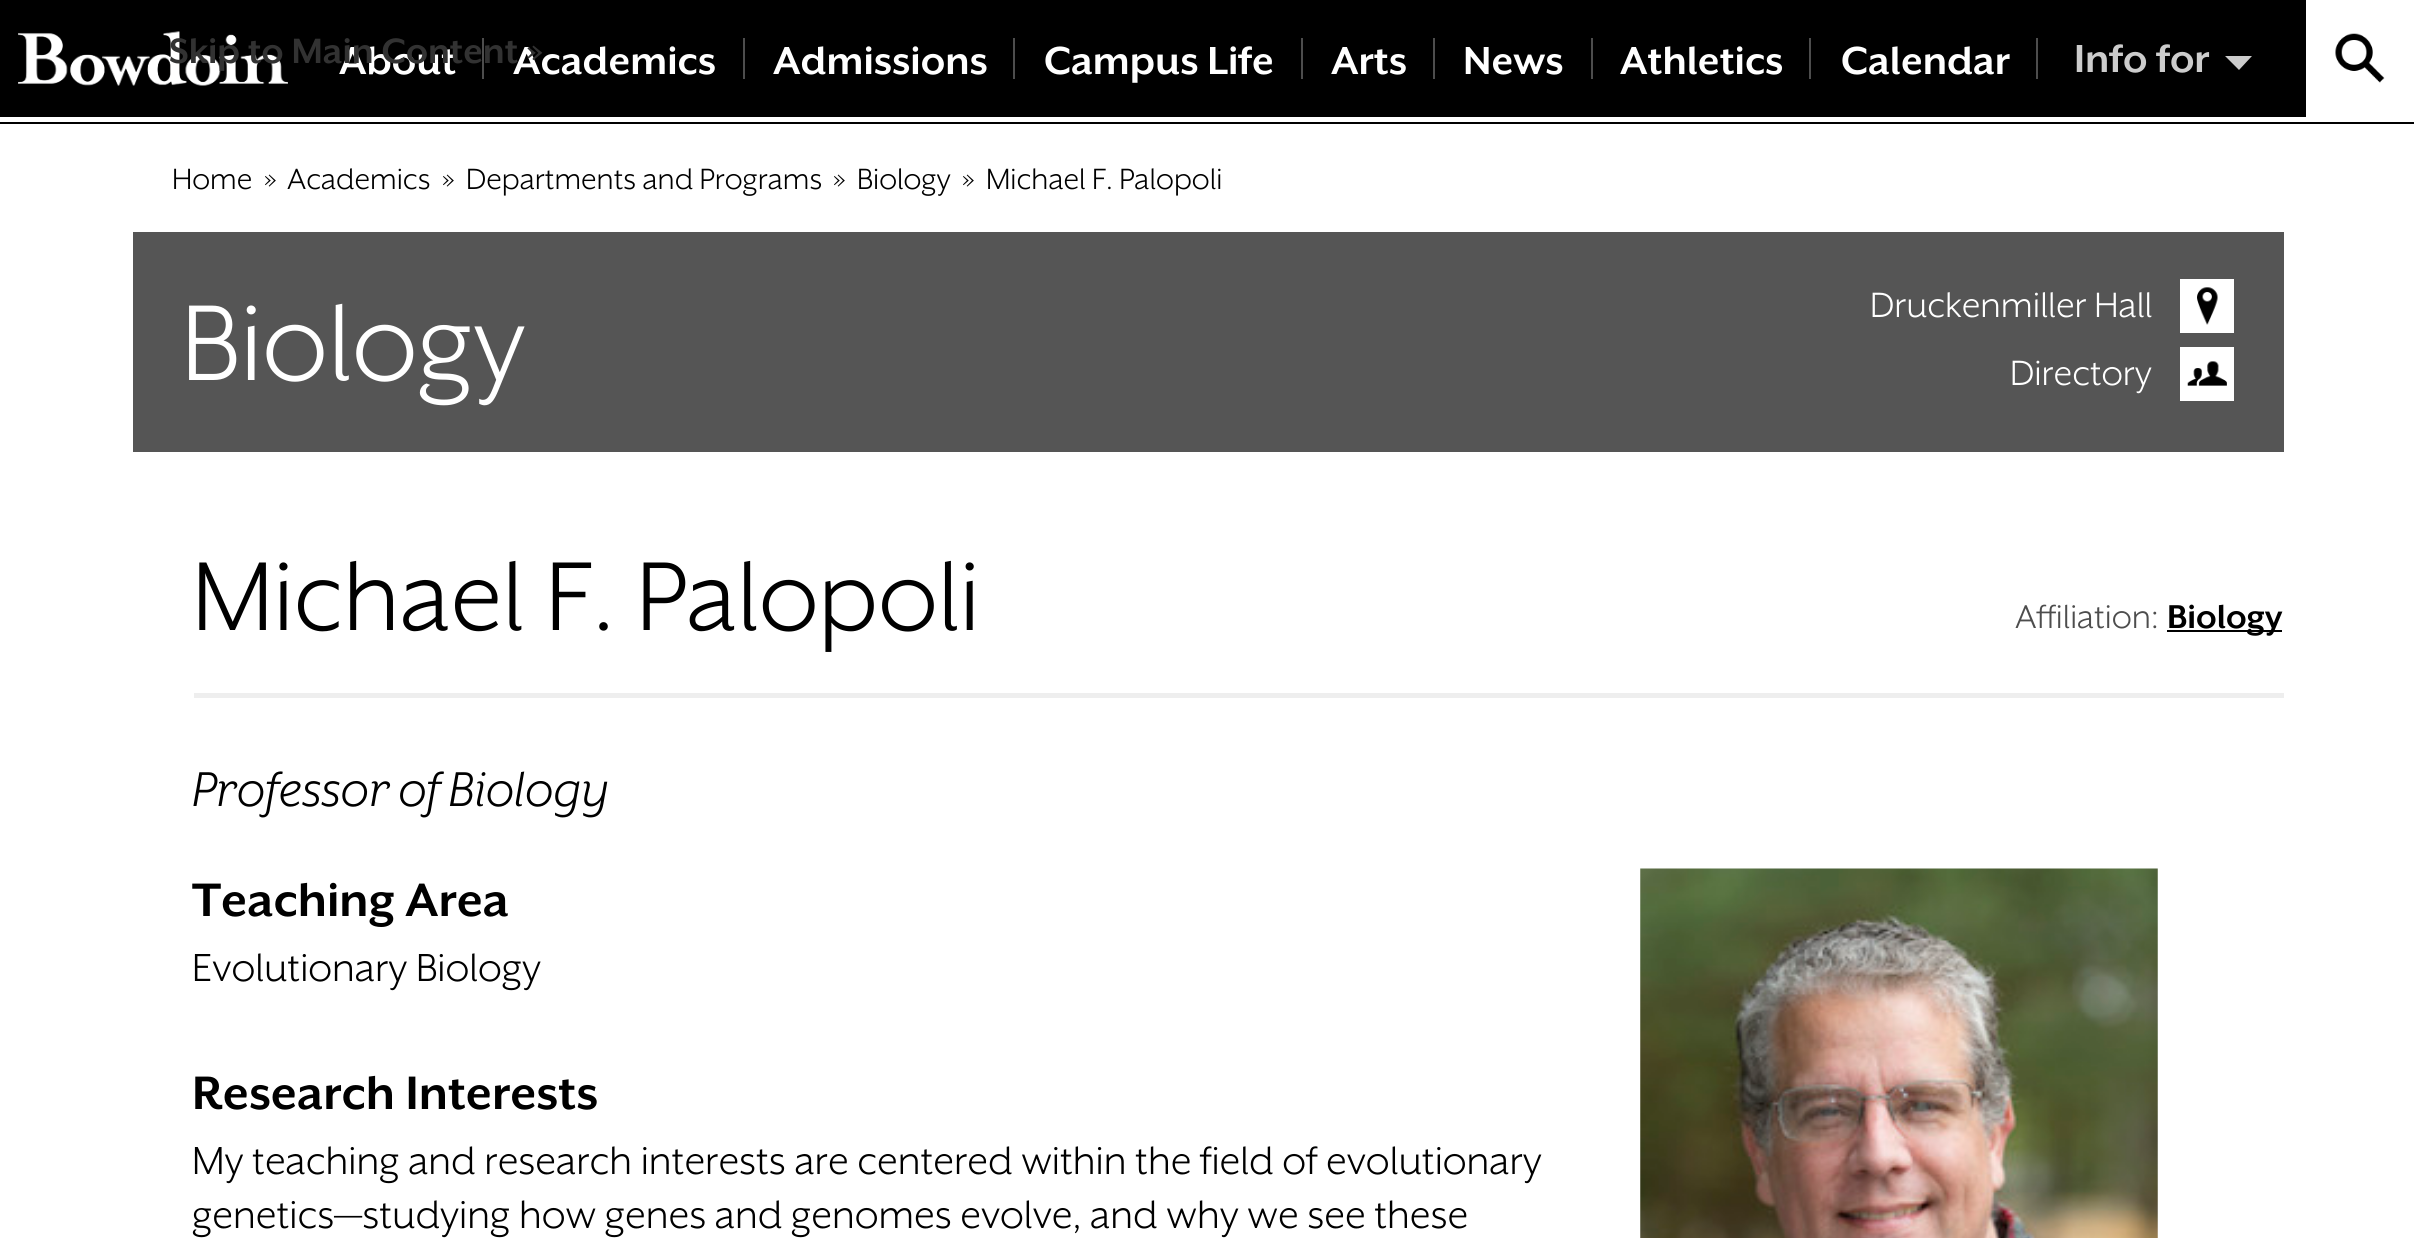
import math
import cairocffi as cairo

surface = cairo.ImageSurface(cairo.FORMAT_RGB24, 2414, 1238)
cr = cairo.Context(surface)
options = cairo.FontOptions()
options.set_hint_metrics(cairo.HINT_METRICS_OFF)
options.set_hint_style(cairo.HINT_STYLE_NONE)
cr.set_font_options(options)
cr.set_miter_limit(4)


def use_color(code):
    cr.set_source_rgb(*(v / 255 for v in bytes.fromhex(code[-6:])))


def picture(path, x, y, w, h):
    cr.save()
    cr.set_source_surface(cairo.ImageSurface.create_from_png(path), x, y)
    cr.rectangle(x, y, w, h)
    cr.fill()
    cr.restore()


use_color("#ffffff")
cr.paint()
use_color("#000000")
cr.rectangle(0, 122, 2414, 2)
cr.fill()
cr.rectangle(0, 0, 2306, 117)
cr.fill()
picture("img1.png", 18, 31, 270, 55)
cr.select_font_face("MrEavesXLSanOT", cairo.FONT_SLANT_NORMAL, cairo.FONT_WEIGHT_BOLD)
cr.set_font_size(45)
use_color("#ffffff")
cr.move_to(339, 74)
cr.show_text("About")
use_color("#4d4d4d")
cr.rectangle(482, 38, 2, 41)
cr.fill()
use_color("#ffffff")
cr.move_to(513, 74)
cr.show_text("Academics")
cr.set_font_size(40.5)
use_color("#323232")
cr.move_to(169, 63)
cr.show_text("Skip to Main Content »")
use_color("#4d4d4d")
cr.rectangle(743, 38, 2, 41)
cr.fill()
cr.set_font_size(45)
use_color("#ffffff")
cr.move_to(773, 74)
cr.show_text("Admissions")
use_color("#4d4d4d")
cr.rectangle(1013, 38, 2, 41)
cr.fill()
use_color("#ffffff")
cr.move_to(1044, 74)
cr.show_text("Campus Life")
use_color("#4d4d4d")
cr.rectangle(1301, 38, 2, 41)
cr.fill()
use_color("#ffffff")
cr.move_to(1331, 74)
cr.show_text("Arts")
use_color("#4d4d4d")
cr.rectangle(1433, 38, 2, 41)
cr.fill()
use_color("#ffffff")
cr.move_to(1463, 74)
cr.show_text("News")
use_color("#4d4d4d")
cr.rectangle(1591, 38, 2, 41)
cr.fill()
use_color("#ffffff")
cr.move_to(1620, 74)
cr.show_text("Athletics")
use_color("#4d4d4d")
cr.rectangle(1809, 38, 2, 41)
cr.fill()
use_color("#ffffff")
cr.move_to(1841, 74)
cr.show_text("Calendar")
use_color("#4d4d4d")
cr.rectangle(2036, 38, 2, 41)
cr.fill()
use_color("#cccccc")
cr.move_to(2074, 72)
cr.show_text("Info for")
cr.new_path()
cr.move_to(2225, 56)
cr.line_to(2252, 56)
cr.line_to(2239, 70)
cr.close_path()
cr.fill()
picture("img2.png", 2335, 33, 50, 50)
cr.select_font_face("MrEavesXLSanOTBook")
cr.set_font_size(33.75)
use_color("#000000")
cr.move_to(172, 189)
cr.show_text("Home")
cr.move_to(264, 189)
cr.show_text("»")
cr.move_to(287, 189)
cr.show_text("Academics")
cr.move_to(442, 189)
cr.show_text("»")
cr.move_to(466, 189)
cr.show_text("Departments and Programs")
cr.move_to(833, 189)
cr.show_text("»")
cr.move_to(857, 189)
cr.show_text("Biology")
cr.move_to(962, 189)
cr.show_text("»")
cr.move_to(986, 189)
cr.show_text("Michael F. Palopoli")
use_color("#555555")
cr.rectangle(133, 232, 2151, 220)
cr.fill()
cr.set_font_size(124)
use_color("#ffffff")
cr.move_to(181, 380)
cr.show_text("Biology")
cr.set_font_size(40.5)
cr.move_to(1870, 317)
cr.show_text("Druckenmiller Hall")
cr.rectangle(2180, 279, 54, 54)
cr.fill()
picture("img3.png", 2197, 287, 21, 38)
cr.move_to(2010, 385)
cr.show_text("Directory")
cr.rectangle(2180, 347, 54, 54)
cr.fill()
picture("img4.png", 2187, 361, 40, 25)
use_color("#eeeeee")
cr.rectangle(194, 693, 2090, 5)
cr.fill()
cr.set_font_size(112.5)
use_color("#000000")
cr.move_to(192, 630)
cr.show_text("Michael F. Palopoli")
cr.set_font_size(38)
use_color("#4d4d4d")
cr.move_to(2015, 628)
cr.show_text("Affiliation:")
use_color("#000000")
cr.rectangle(2167, 630, 115, 2)
cr.fill()
cr.select_font_face("MrEavesXLSanOT", cairo.FONT_SLANT_NORMAL, cairo.FONT_WEIGHT_BOLD)
cr.move_to(2167, 628)
cr.show_text("Biology")
cr.select_font_face("MrEavesXLSanOTBook", cairo.FONT_SLANT_ITALIC)
cr.set_font_size(56.25)
cr.move_to(192, 806)
cr.show_text("Professor of Biology")
cr.select_font_face("MrEavesXLSanOT", cairo.FONT_SLANT_NORMAL, cairo.FONT_WEIGHT_BOLD)
cr.set_font_size(54)
cr.move_to(192, 916)
cr.show_text("Teaching Area")
cr.select_font_face("MrEavesXLSanOTBook")
cr.set_font_size(45)
cr.move_to(192, 981)
cr.show_text("Evolutionary Biology")
cr.select_font_face("MrEavesXLSanOT", cairo.FONT_SLANT_NORMAL, cairo.FONT_WEIGHT_BOLD)
cr.set_font_size(54)
cr.move_to(192, 1109)
cr.show_text("Research Interests")
cr.select_font_face("MrEavesXLSanOTBook")
cr.set_font_size(45)
cr.move_to(192, 1174)
cr.show_text("My teaching and research interests are centered within the field of evolutionary")
cr.move_to(192, 1228)
cr.show_text("genetics—studying how genes and genomes evolve, and why we see these")
picture("img5.png", 1640, 868, 518, 370)
surface.write_to_png("result.png")
